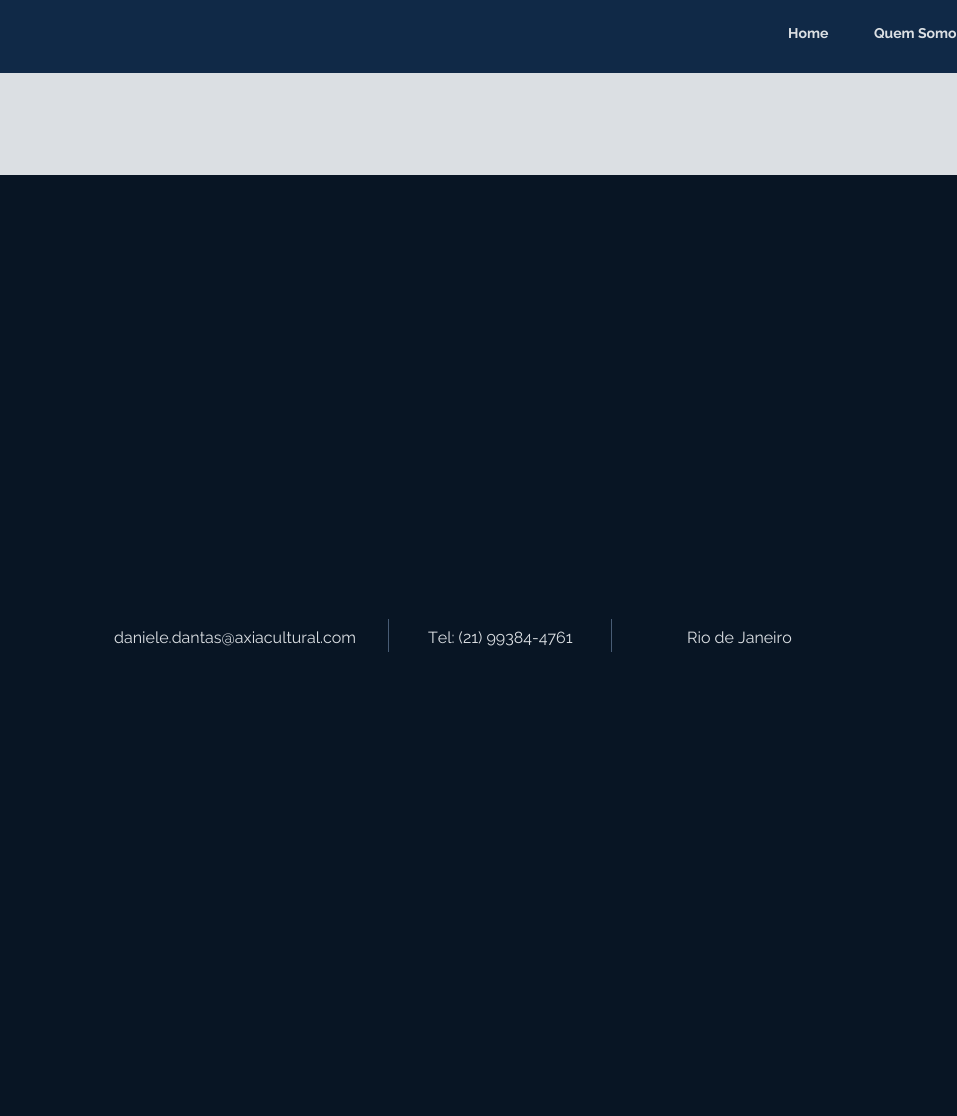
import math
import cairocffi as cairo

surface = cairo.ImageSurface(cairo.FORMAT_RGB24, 957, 1116)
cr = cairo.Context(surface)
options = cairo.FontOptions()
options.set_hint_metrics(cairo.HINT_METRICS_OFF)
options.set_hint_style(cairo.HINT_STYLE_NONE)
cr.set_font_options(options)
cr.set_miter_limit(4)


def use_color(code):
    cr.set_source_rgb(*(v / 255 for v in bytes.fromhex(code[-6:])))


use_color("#081524")
cr.paint()
use_color("#102947")
cr.rectangle(0, 0, 957, 73)
cr.fill()
cr.select_font_face("Raleway", cairo.FONT_SLANT_NORMAL, cairo.FONT_WEIGHT_BOLD)
cr.set_font_size(14)
use_color("#dbdfe3")
cr.move_to(788, 38)
cr.show_text("Home")
cr.move_to(874, 38)
cr.show_text("Quem Somo")
cr.rectangle(0, 73, 957, 102)
cr.fill()
cr.select_font_face("Raleway")
cr.set_font_size(16)
cr.move_to(114, 643)
cr.show_text("daniele.dantas@axiacultural.com")
use_color("#485c75")
cr.rectangle(388, 619, 1, 33)
cr.fill()
use_color("#dbdfe3")
cr.move_to(428, 643)
cr.show_text("Tel: (21) 99384-4761")
use_color("#485c75")
cr.rectangle(611, 619, 1, 33)
cr.fill()
use_color("#dbdfe3")
cr.move_to(687, 643)
cr.show_text("Rio de Janeiro")
surface.write_to_png("result.png")
